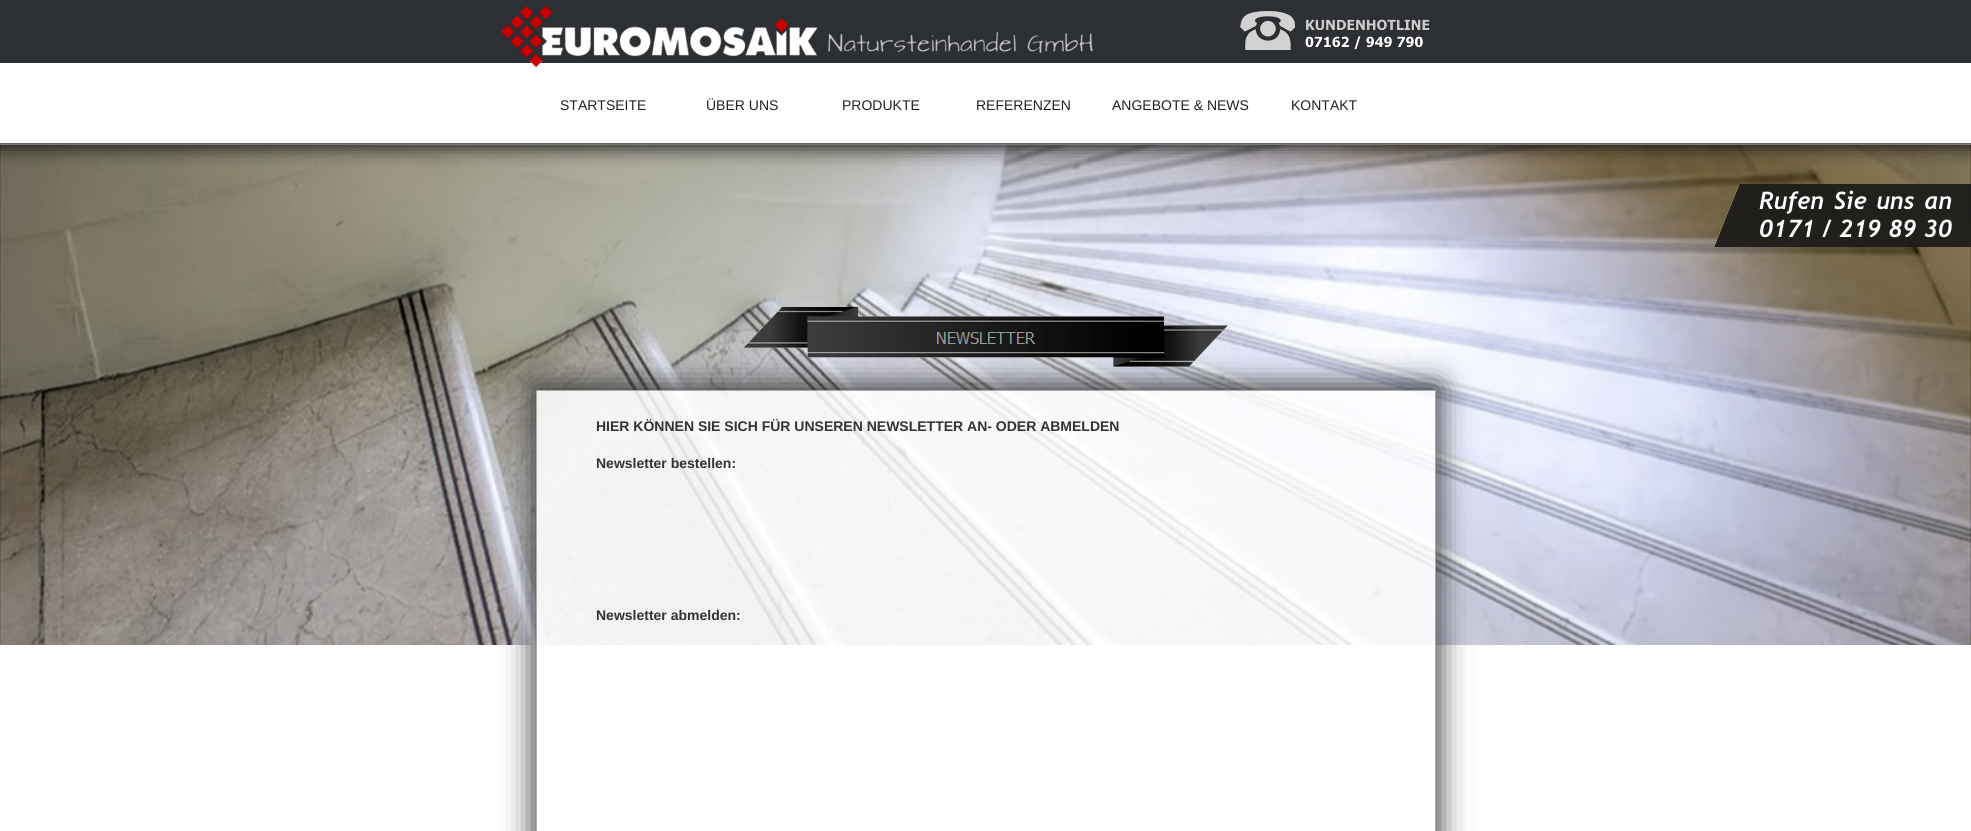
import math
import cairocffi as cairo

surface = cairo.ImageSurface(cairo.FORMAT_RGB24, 1971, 831)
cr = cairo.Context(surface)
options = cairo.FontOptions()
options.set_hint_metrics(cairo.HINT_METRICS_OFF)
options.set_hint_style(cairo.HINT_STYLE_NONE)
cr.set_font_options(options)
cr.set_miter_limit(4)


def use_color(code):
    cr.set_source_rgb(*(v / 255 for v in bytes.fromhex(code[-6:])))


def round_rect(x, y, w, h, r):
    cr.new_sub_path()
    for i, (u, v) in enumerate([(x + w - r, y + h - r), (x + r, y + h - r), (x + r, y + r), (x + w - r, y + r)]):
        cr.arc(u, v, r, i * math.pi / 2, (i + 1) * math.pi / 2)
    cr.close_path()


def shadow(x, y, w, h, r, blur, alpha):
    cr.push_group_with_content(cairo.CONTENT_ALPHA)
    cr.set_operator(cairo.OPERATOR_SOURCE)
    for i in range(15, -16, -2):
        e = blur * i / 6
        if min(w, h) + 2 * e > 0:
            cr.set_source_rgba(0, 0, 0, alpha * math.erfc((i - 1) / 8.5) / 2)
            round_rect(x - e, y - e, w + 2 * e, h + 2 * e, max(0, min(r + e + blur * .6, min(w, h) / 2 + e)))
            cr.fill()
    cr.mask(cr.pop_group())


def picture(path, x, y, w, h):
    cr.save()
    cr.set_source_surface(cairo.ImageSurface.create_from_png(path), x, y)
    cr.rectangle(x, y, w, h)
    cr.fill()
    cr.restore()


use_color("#ffffff")
cr.paint()
picture("img3.png", 0, 145, 1971, 500)
cr.save()
cr.rectangle(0, 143, 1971, 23)
cr.clip()
use_color("#000000")
shadow(-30, 56, 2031, 90, 0, 10, 0.95)
cr.restore()
use_color("#2c2f33")
cr.rectangle(0, 0, 1971, 63)
cr.fill()
picture("img1.png", 500, 6, 593, 62)
picture("img2.png", 1240, 11, 190, 39)
cr.select_font_face("Liberation Sans")
cr.set_font_size(14)
use_color("#212121")
cr.move_to(560, 110)
cr.show_text("STARTSEITE")
cr.move_to(706, 110)
cr.show_text("ÜBER UNS")
cr.move_to(842, 110)
cr.show_text("PRODUKTE")
cr.move_to(976, 110)
cr.show_text("REFERENZEN")
cr.move_to(1112, 110)
cr.show_text("ANGEBOTE & NEWS")
cr.move_to(1291, 110)
cr.show_text("KONTAKT")
cr.save()
cr.set_fill_rule(cairo.FILL_RULE_EVEN_ODD)
cr.new_path()
cr.move_to(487, 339)
cr.line_to(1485, 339)
cr.line_to(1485, 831)
cr.line_to(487, 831)
cr.close_path()
cr.move_to(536, 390)
cr.line_to(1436, 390)
cr.line_to(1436, 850)
cr.line_to(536, 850)
cr.close_path()
cr.clip()
use_color("#333333")
shadow(533, 385, 906, 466, 0, 15, 1)
cr.restore()
picture("img4.png", 743, 307, 485, 60)
cr.set_source_rgba(1, 1, 1, 0.85)
cr.rectangle(537, 391, 898, 254)
cr.fill()
cr.rectangle(536.5, 390.5, 899, 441)
use_color("#aaaaaa")
cr.set_line_width(1)
cr.stroke()
cr.select_font_face("Liberation Sans", cairo.FONT_SLANT_NORMAL, cairo.FONT_WEIGHT_BOLD)
use_color("#333333")
cr.move_to(596, 431)
cr.show_text("HIER KÖNNEN SIE SICH FÜR UNSEREN NEWSLETTER AN- ODER ABMELDEN")
cr.move_to(596, 468)
cr.show_text("Newsletter bestellen:")
cr.move_to(596, 620)
cr.show_text("Newsletter abmelden:")
picture("img5.png", 1714, 184, 257, 63)
picture("img6.png", 1759, 190, 193, 48)
surface.write_to_png("result.png")
